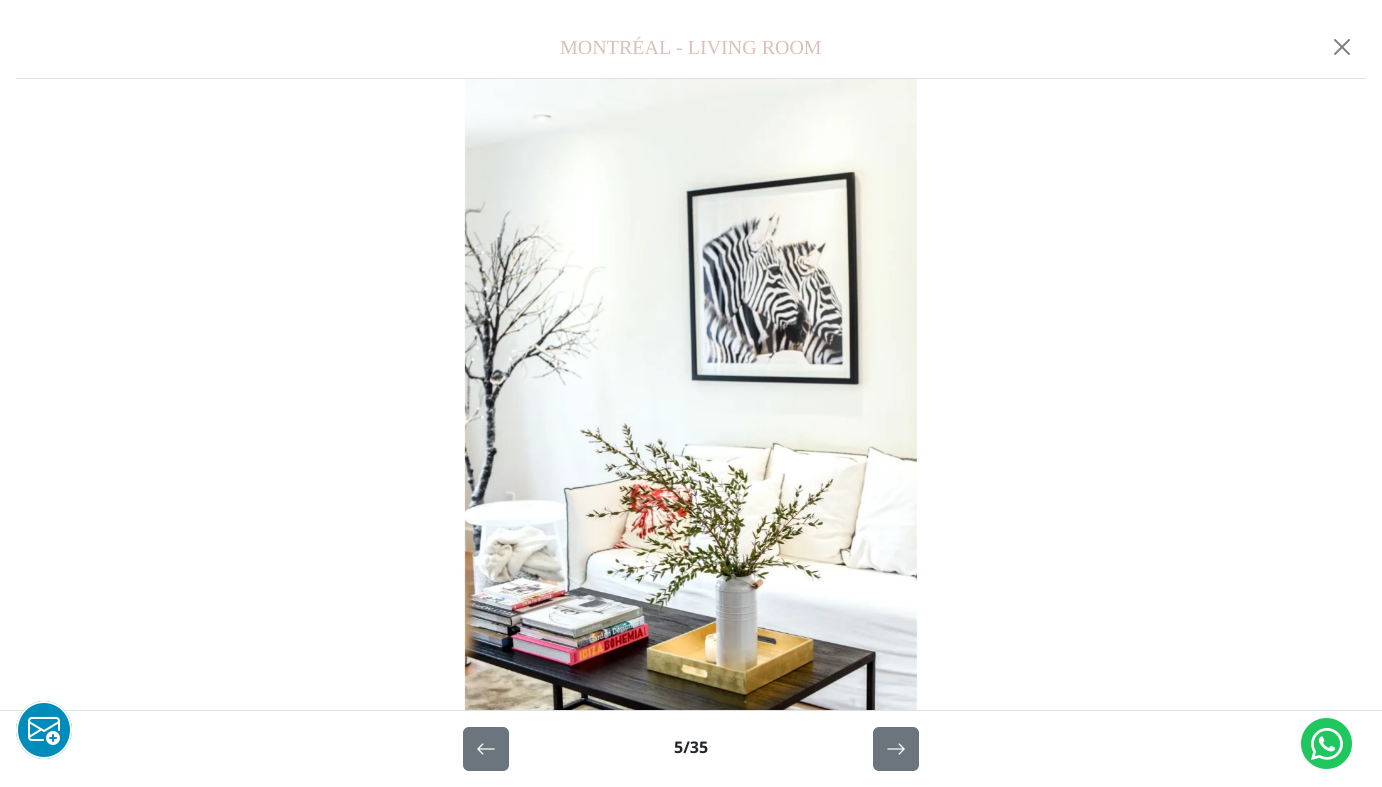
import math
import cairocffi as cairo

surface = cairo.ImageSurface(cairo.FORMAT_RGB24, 1382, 787)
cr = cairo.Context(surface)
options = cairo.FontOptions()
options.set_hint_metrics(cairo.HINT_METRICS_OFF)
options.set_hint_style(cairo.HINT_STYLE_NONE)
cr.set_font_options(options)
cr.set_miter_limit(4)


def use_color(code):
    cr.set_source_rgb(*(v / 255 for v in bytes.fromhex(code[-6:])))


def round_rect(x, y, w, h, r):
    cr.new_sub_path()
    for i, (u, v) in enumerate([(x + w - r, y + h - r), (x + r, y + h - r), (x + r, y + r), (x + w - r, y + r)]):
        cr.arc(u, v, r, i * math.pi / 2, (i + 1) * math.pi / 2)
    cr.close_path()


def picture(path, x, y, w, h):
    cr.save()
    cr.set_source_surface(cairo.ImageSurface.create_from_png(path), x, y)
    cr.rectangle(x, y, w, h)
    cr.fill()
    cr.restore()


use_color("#ffffff")
cr.paint()
use_color("#dee2e6")
cr.rectangle(0, 710, 1382, 1)
cr.fill()
use_color("#008cba")
cr.new_path()
cr.move_to(44, 701)
cr.curve_to(59.5, 701, 72, 714, 72, 730)
cr.curve_to(72, 746, 59.5, 759, 44, 759)
cr.curve_to(28.5, 759, 16, 746, 16, 730)
cr.curve_to(16, 714, 28.5, 701, 44, 701)
cr.close_path()
cr.fill()
cr.new_path()
cr.move_to(44, 702)
cr.curve_to(59, 702, 71, 714.5, 71, 730)
cr.curve_to(71, 745.5, 59, 758, 44, 758)
cr.curve_to(29, 758, 17, 745.5, 17, 730)
cr.curve_to(17, 714.5, 29, 702, 44, 702)
cr.close_path()
use_color("#ffffff")
cr.stroke()
picture("img1.png", 28, 716, 32, 29)
use_color("#dee2e6")
cr.rectangle(16, 78, 1350, 1)
cr.fill()
cr.select_font_face("Liberation Serif")
cr.set_font_size(20)
use_color("#dac1b8")
cr.move_to(560, 54)
cr.show_text("MONTRÉAL - LIVING ROOM")
picture("img2.png", 1334, 39, 16, 16)
picture("img3.png", 464, 79, 454, 631)
use_color("#6c757d")
round_rect(463.5, 727.5, 45, 43, 5.5)
cr.fill_preserve()
cr.set_line_width(1)
cr.stroke()
picture("img4.png", 477, 743, 18, 12)
cr.select_font_face("Noto Sans", cairo.FONT_SLANT_NORMAL, cairo.FONT_WEIGHT_BOLD)
cr.set_font_size(16)
use_color("#212529")
cr.move_to(674, 753)
cr.show_text("5/35")
use_color("#6c757d")
round_rect(873.5, 727.5, 45, 43, 5.5)
cr.fill_preserve()
cr.stroke()
picture("img5.png", 887, 743, 18, 12)
use_color("#1fc75e")
cr.arc(1326.5, 743.5, 26.5, 0, 2 * math.pi)
cr.fill_preserve()
use_color("#ffffff")
cr.set_line_width(2)
cr.stroke()
picture("img6.png", 1311, 728, 32, 32)
surface.write_to_png("result.png")
